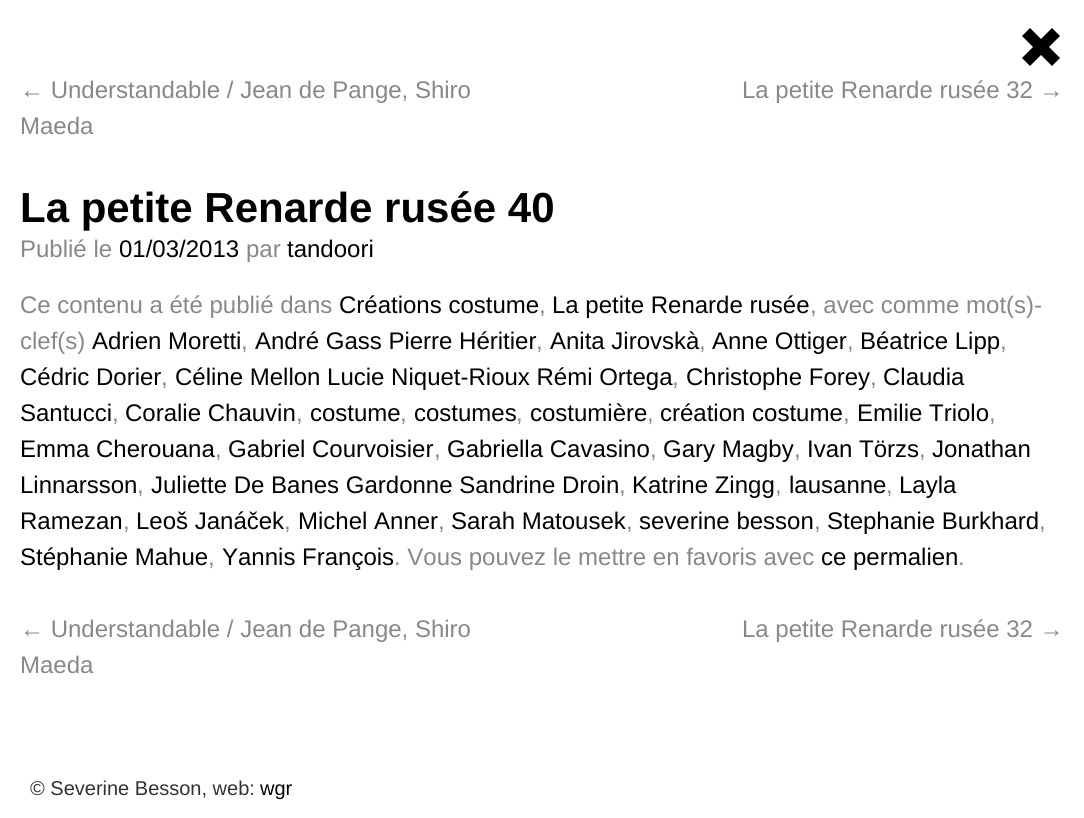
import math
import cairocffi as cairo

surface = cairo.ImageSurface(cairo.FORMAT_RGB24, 1084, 818)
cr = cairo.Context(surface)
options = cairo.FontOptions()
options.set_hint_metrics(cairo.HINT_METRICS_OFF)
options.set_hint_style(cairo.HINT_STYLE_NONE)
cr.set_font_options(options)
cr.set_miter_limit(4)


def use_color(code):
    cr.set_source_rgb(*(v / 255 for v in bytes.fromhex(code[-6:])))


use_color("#ffffff")
cr.paint()
use_color("#000000")
cr.new_path()
cr.move_to(1022, 58)
cr.line_to(1033, 47)
cr.line_to(1022, 36)
cr.line_to(1030, 28)
cr.line_to(1041, 39)
cr.line_to(1052, 28)
cr.line_to(1060, 36)
cr.line_to(1049, 47)
cr.line_to(1060, 58)
cr.line_to(1052, 66)
cr.line_to(1041, 55)
cr.line_to(1030, 66)
cr.close_path()
cr.fill()
cr.select_font_face("Liberation Sans")
cr.set_font_size(24)
use_color("#888888")
cr.move_to(20, 98)
cr.show_text("← Understandable / Jean de Pange, Shiro")
cr.move_to(20, 134)
cr.show_text("Maeda")
cr.move_to(742, 98)
cr.show_text("La petite Renarde rusée 32 →")
cr.select_font_face("Liberation Sans", cairo.FONT_SLANT_NORMAL, cairo.FONT_WEIGHT_BOLD)
cr.set_font_size(42)
use_color("#000000")
cr.move_to(20, 222)
cr.show_text("La petite Renarde rusée 40")
cr.select_font_face("Liberation Sans")
cr.set_font_size(24)
use_color("#888888")
cr.move_to(20, 257)
cr.show_text("Publié le")
use_color("#000000")
cr.move_to(119, 257)
cr.show_text("01/03/2013")
use_color("#888888")
cr.move_to(246, 257)
cr.show_text("par")
use_color("#000000")
cr.move_to(287, 257)
cr.show_text("tandoori")
use_color("#888888")
cr.move_to(20, 313)
cr.show_text("Ce contenu a été publié dans")
use_color("#000000")
cr.move_to(339, 313)
cr.show_text("Créations costume")
use_color("#888888")
cr.move_to(539, 313)
cr.show_text(",")
use_color("#000000")
cr.move_to(552, 313)
cr.show_text("La petite Renarde rusée")
use_color("#888888")
cr.move_to(810, 313)
cr.show_text(", avec comme mot(s)-")
cr.move_to(20, 349)
cr.show_text("clef(s)")
use_color("#000000")
cr.move_to(92, 349)
cr.show_text("Adrien Moretti")
use_color("#888888")
cr.move_to(241, 349)
cr.show_text(",")
use_color("#000000")
cr.move_to(255, 349)
cr.show_text("André Gass Pierre Héritier")
use_color("#888888")
cr.move_to(536, 349)
cr.show_text(",")
use_color("#000000")
cr.move_to(550, 349)
cr.show_text("Anita Jirovskà")
use_color("#888888")
cr.move_to(699, 349)
cr.show_text(",")
use_color("#000000")
cr.move_to(712, 349)
cr.show_text("Anne Ottiger")
use_color("#888888")
cr.move_to(847, 349)
cr.show_text(",")
use_color("#000000")
cr.move_to(860, 349)
cr.show_text("Béatrice Lipp")
use_color("#888888")
cr.move_to(1000, 349)
cr.show_text(",")
use_color("#000000")
cr.move_to(20, 385)
cr.show_text("Cédric Dorier")
use_color("#888888")
cr.move_to(161, 385)
cr.show_text(",")
use_color("#000000")
cr.move_to(175, 385)
cr.show_text("Céline Mellon Lucie Niquet-Rioux Rémi Ortega")
use_color("#888888")
cr.move_to(672, 385)
cr.show_text(",")
use_color("#000000")
cr.move_to(686, 385)
cr.show_text("Christophe Forey")
use_color("#888888")
cr.move_to(870, 385)
cr.show_text(",")
use_color("#000000")
cr.move_to(883, 385)
cr.show_text("Claudia")
cr.move_to(20, 421)
cr.show_text("Santucci")
use_color("#888888")
cr.move_to(112, 421)
cr.show_text(",")
use_color("#000000")
cr.move_to(125, 421)
cr.show_text("Coralie Chauvin")
use_color("#888888")
cr.move_to(296, 421)
cr.show_text(",")
use_color("#000000")
cr.move_to(310, 421)
cr.show_text("costume")
use_color("#888888")
cr.move_to(400, 421)
cr.show_text(",")
use_color("#000000")
cr.move_to(414, 421)
cr.show_text("costumes")
use_color("#888888")
cr.move_to(516, 421)
cr.show_text(",")
use_color("#000000")
cr.move_to(530, 421)
cr.show_text("costumière")
use_color("#888888")
cr.move_to(647, 421)
cr.show_text(",")
use_color("#000000")
cr.move_to(660, 421)
cr.show_text("création costume")
use_color("#888888")
cr.move_to(843, 421)
cr.show_text(",")
use_color("#000000")
cr.move_to(857, 421)
cr.show_text("Emilie Triolo")
use_color("#888888")
cr.move_to(989, 421)
cr.show_text(",")
use_color("#000000")
cr.move_to(20, 457)
cr.show_text("Emma Cherouana")
use_color("#888888")
cr.move_to(215, 457)
cr.show_text(",")
use_color("#000000")
cr.move_to(228, 457)
cr.show_text("Gabriel Courvoisier")
use_color("#888888")
cr.move_to(434, 457)
cr.show_text(",")
use_color("#000000")
cr.move_to(447, 457)
cr.show_text("Gabriella Cavasino")
use_color("#888888")
cr.move_to(650, 457)
cr.show_text(",")
use_color("#000000")
cr.move_to(663, 457)
cr.show_text("Gary Magby")
use_color("#888888")
cr.move_to(794, 457)
cr.show_text(",")
use_color("#000000")
cr.move_to(807, 457)
cr.show_text("Ivan Törzs")
use_color("#888888")
cr.move_to(919, 457)
cr.show_text(",")
use_color("#000000")
cr.move_to(932, 457)
cr.show_text("Jonathan")
cr.move_to(20, 493)
cr.show_text("Linnarsson")
use_color("#888888")
cr.move_to(137, 493)
cr.show_text(",")
use_color("#000000")
cr.move_to(151, 493)
cr.show_text("Juliette De Banes Gardonne Sandrine Droin")
use_color("#888888")
cr.move_to(619, 493)
cr.show_text(",")
use_color("#000000")
cr.move_to(632, 493)
cr.show_text("Katrine Zingg")
use_color("#888888")
cr.move_to(775, 493)
cr.show_text(",")
use_color("#000000")
cr.move_to(789, 493)
cr.show_text("lausanne")
use_color("#888888")
cr.move_to(886, 493)
cr.show_text(",")
use_color("#000000")
cr.move_to(899, 493)
cr.show_text("Layla")
cr.move_to(20, 529)
cr.show_text("Ramezan")
use_color("#888888")
cr.move_to(123, 529)
cr.show_text(",")
use_color("#000000")
cr.move_to(136, 529)
cr.show_text("Leoš Janáček")
use_color("#888888")
cr.move_to(284, 529)
cr.show_text(",")
use_color("#000000")
cr.move_to(298, 529)
cr.show_text("Michel Anner")
use_color("#888888")
cr.move_to(438, 529)
cr.show_text(",")
use_color("#000000")
cr.move_to(451, 529)
cr.show_text("Sarah Matousek")
use_color("#888888")
cr.move_to(626, 529)
cr.show_text(",")
use_color("#000000")
cr.move_to(639, 529)
cr.show_text("severine besson")
use_color("#888888")
cr.move_to(814, 529)
cr.show_text(",")
use_color("#000000")
cr.move_to(827, 529)
cr.show_text("Stephanie Burkhard")
use_color("#888888")
cr.move_to(1039, 529)
cr.show_text(",")
use_color("#000000")
cr.move_to(20, 565)
cr.show_text("Stéphanie Mahue")
use_color("#888888")
cr.move_to(208, 565)
cr.show_text(",")
use_color("#000000")
cr.move_to(222, 565)
cr.show_text("Yannis François")
use_color("#888888")
cr.move_to(394, 565)
cr.show_text(". Vous pouvez le mettre en favoris avec")
use_color("#000000")
cr.move_to(821, 565)
cr.show_text("ce permalien")
use_color("#888888")
cr.move_to(958, 565)
cr.show_text(".")
cr.move_to(20, 637)
cr.show_text("← Understandable / Jean de Pange, Shiro")
cr.move_to(20, 673)
cr.show_text("Maeda")
cr.move_to(742, 637)
cr.show_text("La petite Renarde rusée 32 →")
cr.set_font_size(20)
use_color("#333333")
cr.move_to(30, 795)
cr.show_text("© Severine Besson, web:")
use_color("#000000")
cr.move_to(260, 795)
cr.show_text("wgr")
surface.write_to_png("result.png")
